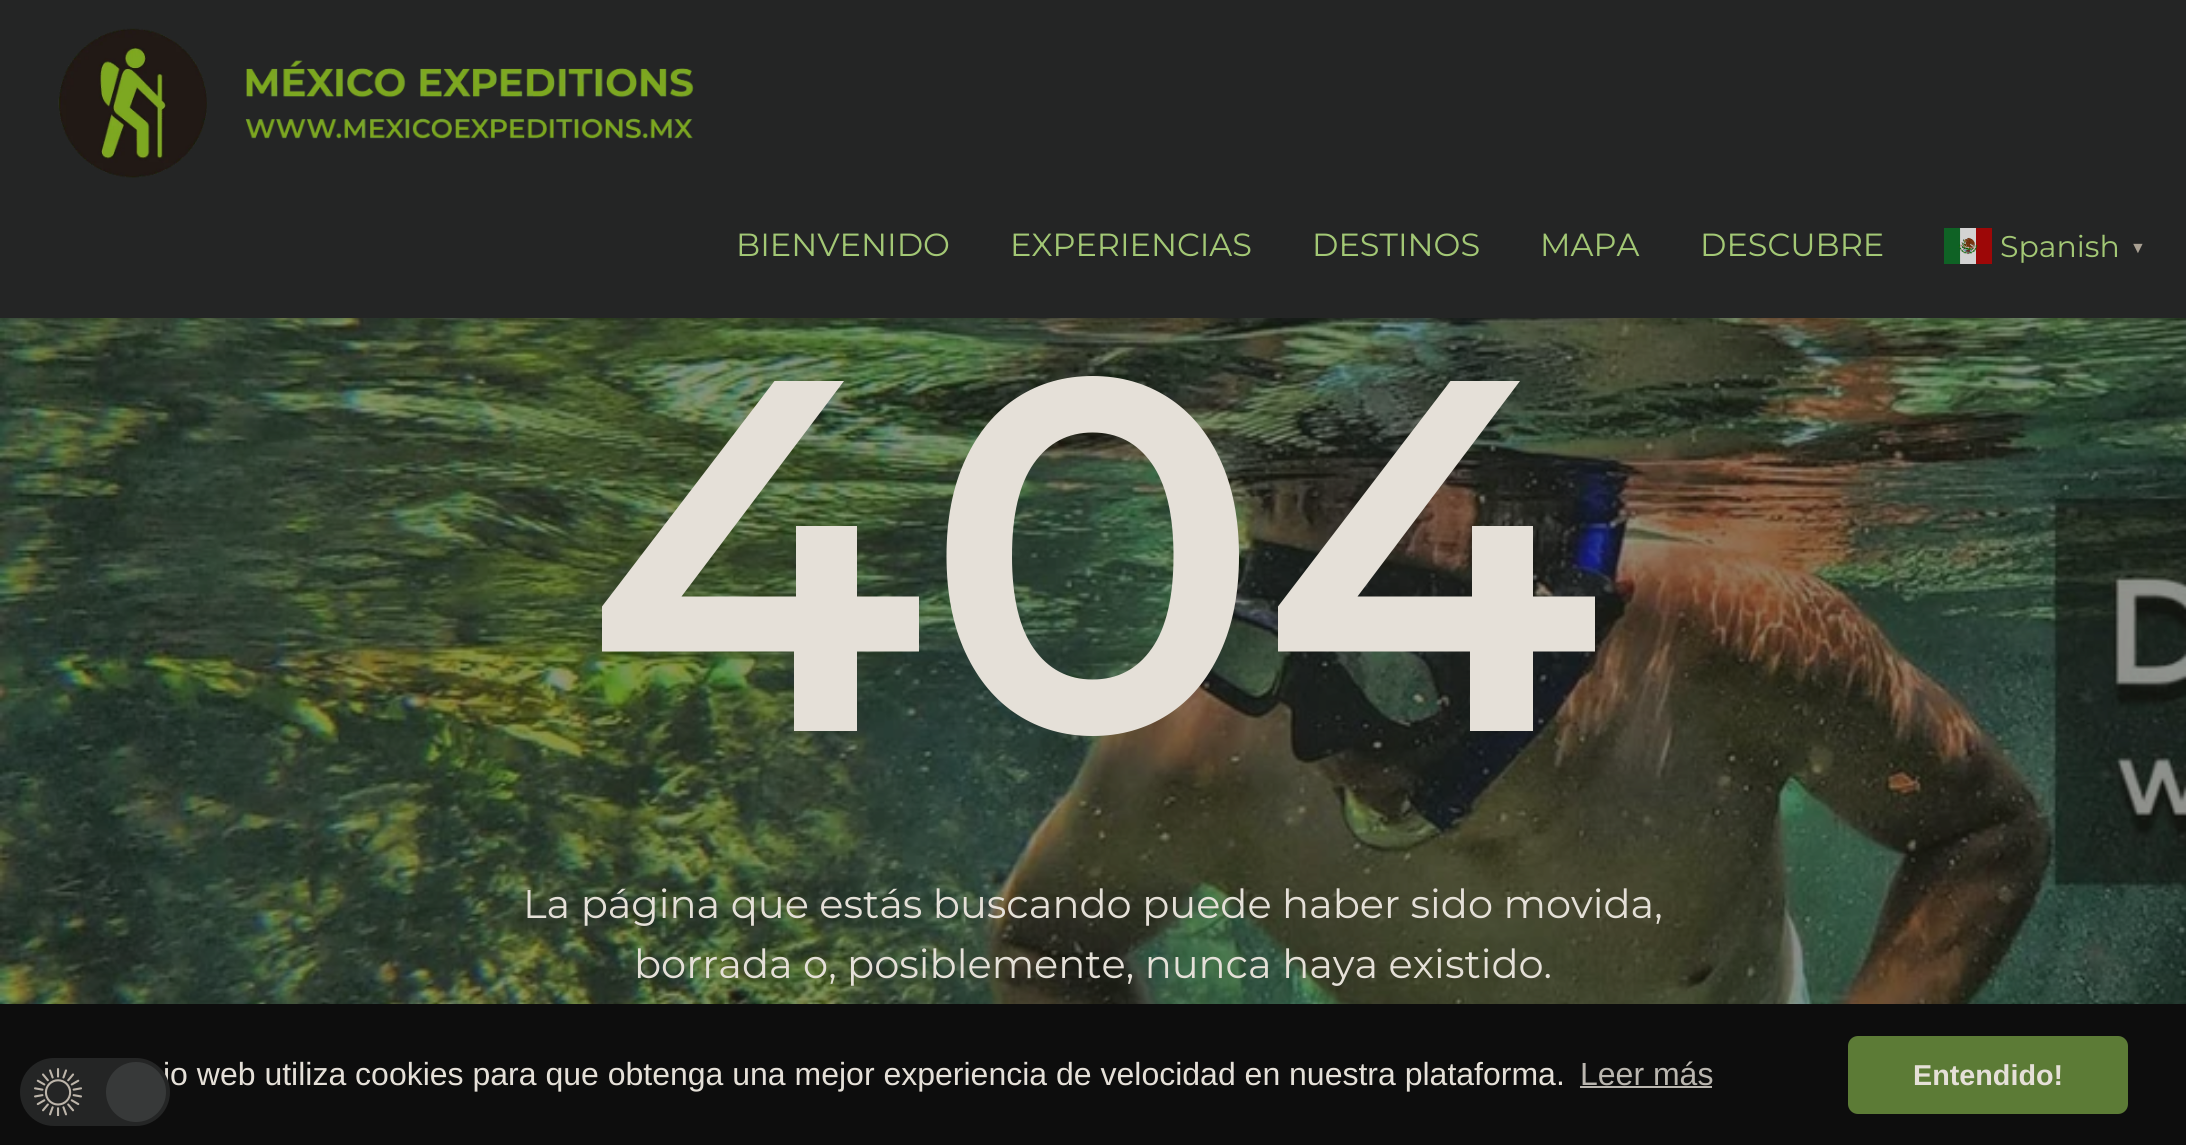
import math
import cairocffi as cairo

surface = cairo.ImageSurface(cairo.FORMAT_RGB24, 2186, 1145)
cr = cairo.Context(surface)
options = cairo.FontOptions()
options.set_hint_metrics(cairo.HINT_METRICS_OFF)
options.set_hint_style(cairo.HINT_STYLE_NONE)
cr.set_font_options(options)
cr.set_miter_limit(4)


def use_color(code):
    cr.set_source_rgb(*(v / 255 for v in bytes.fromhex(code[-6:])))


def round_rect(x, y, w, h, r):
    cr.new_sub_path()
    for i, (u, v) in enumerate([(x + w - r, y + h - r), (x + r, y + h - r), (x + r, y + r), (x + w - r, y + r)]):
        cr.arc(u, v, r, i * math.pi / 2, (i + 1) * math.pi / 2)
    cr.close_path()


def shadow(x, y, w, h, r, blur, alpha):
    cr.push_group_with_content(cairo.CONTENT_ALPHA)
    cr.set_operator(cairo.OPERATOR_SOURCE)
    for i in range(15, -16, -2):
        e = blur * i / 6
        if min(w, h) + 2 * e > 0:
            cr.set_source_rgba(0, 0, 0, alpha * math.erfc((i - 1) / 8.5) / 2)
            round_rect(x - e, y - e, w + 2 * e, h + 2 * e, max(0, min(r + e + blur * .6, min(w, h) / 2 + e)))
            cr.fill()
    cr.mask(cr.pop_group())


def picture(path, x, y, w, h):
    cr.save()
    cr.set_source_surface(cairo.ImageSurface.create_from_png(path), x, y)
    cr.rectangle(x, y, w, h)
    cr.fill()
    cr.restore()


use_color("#ffffff")
cr.paint()
picture("img3.png", 0, 318, 2186, 686)
use_color("#0d0d0d")
shadow(0, 4, 2186, 318, 0, 2, 0.07)
use_color("#242525")
cr.rectangle(0, 0, 2186, 318)
cr.fill()
picture("img1.png", 58, 28, 636, 150)
cr.select_font_face("Montserrat Thin")
cr.set_font_size(32)
use_color("#a3c875")
cr.move_to(736, 256)
cr.show_text("BIENVENIDO")
cr.move_to(1010, 256)
cr.show_text("EXPERIENCIAS")
cr.move_to(1312, 256)
cr.show_text("DESTINOS")
cr.move_to(1540, 256)
cr.show_text("MAPA")
cr.move_to(1700, 256)
cr.show_text("DESCUBRE")
picture("img2.png", 1944, 228, 48, 36)
cr.set_font_size(30)
cr.move_to(2000, 257)
cr.show_text("Spanish")
cr.select_font_face("Liberation Serif", cairo.FONT_SLANT_NORMAL, cairo.FONT_WEIGHT_BOLD)
cr.set_font_size(16)
use_color("#a9a093")
cr.move_to(2130, 253)
cr.show_text("▼")
cr.select_font_face("Montserrat SemiBold")
cr.set_font_size(500)
use_color("#e5e0d8")
cr.move_to(585, 731)
cr.show_text("404")
cr.select_font_face("Montserrat Thin")
cr.set_font_size(40)
cr.move_to(523, 918)
cr.show_text("La página que estás buscando puede haber sido movida,")
cr.move_to(634, 978)
cr.show_text("borrada o, posiblemente, nunca haya existido.")
use_color("#0d0d0d")
cr.rectangle(0, 1004, 2186, 141)
cr.fill()
cr.select_font_face("Liberation Sans")
cr.set_font_size(32)
use_color("#e5e0d8")
cr.move_to(163, 1085)
cr.show_text("io web utiliza cookies para que obtenga una mejor experiencia de velocidad en nuestra plataforma.")
use_color("#242525")
round_rect(20, 1058, 150, 68, 34)
cr.fill()
picture("img4.png", 34, 1068, 48, 48)
use_color("#373939")
cr.arc(136, 1092, 30, 0, 2 * math.pi)
cr.fill()
use_color("#bab6af")
cr.move_to(1580, 1085)
cr.show_text("Leer más")
cr.rectangle(1580, 1086, 132, 2)
cr.fill()
use_color("#5c7b36")
round_rect(1848, 1036, 280, 78, 10)
cr.fill()
cr.select_font_face("Liberation Sans", cairo.FONT_SLANT_NORMAL, cairo.FONT_WEIGHT_BOLD)
cr.set_font_size(28.75)
use_color("#e5e0d8")
cr.move_to(1913, 1085)
cr.show_text("Entendido!")
surface.write_to_png("result.png")
